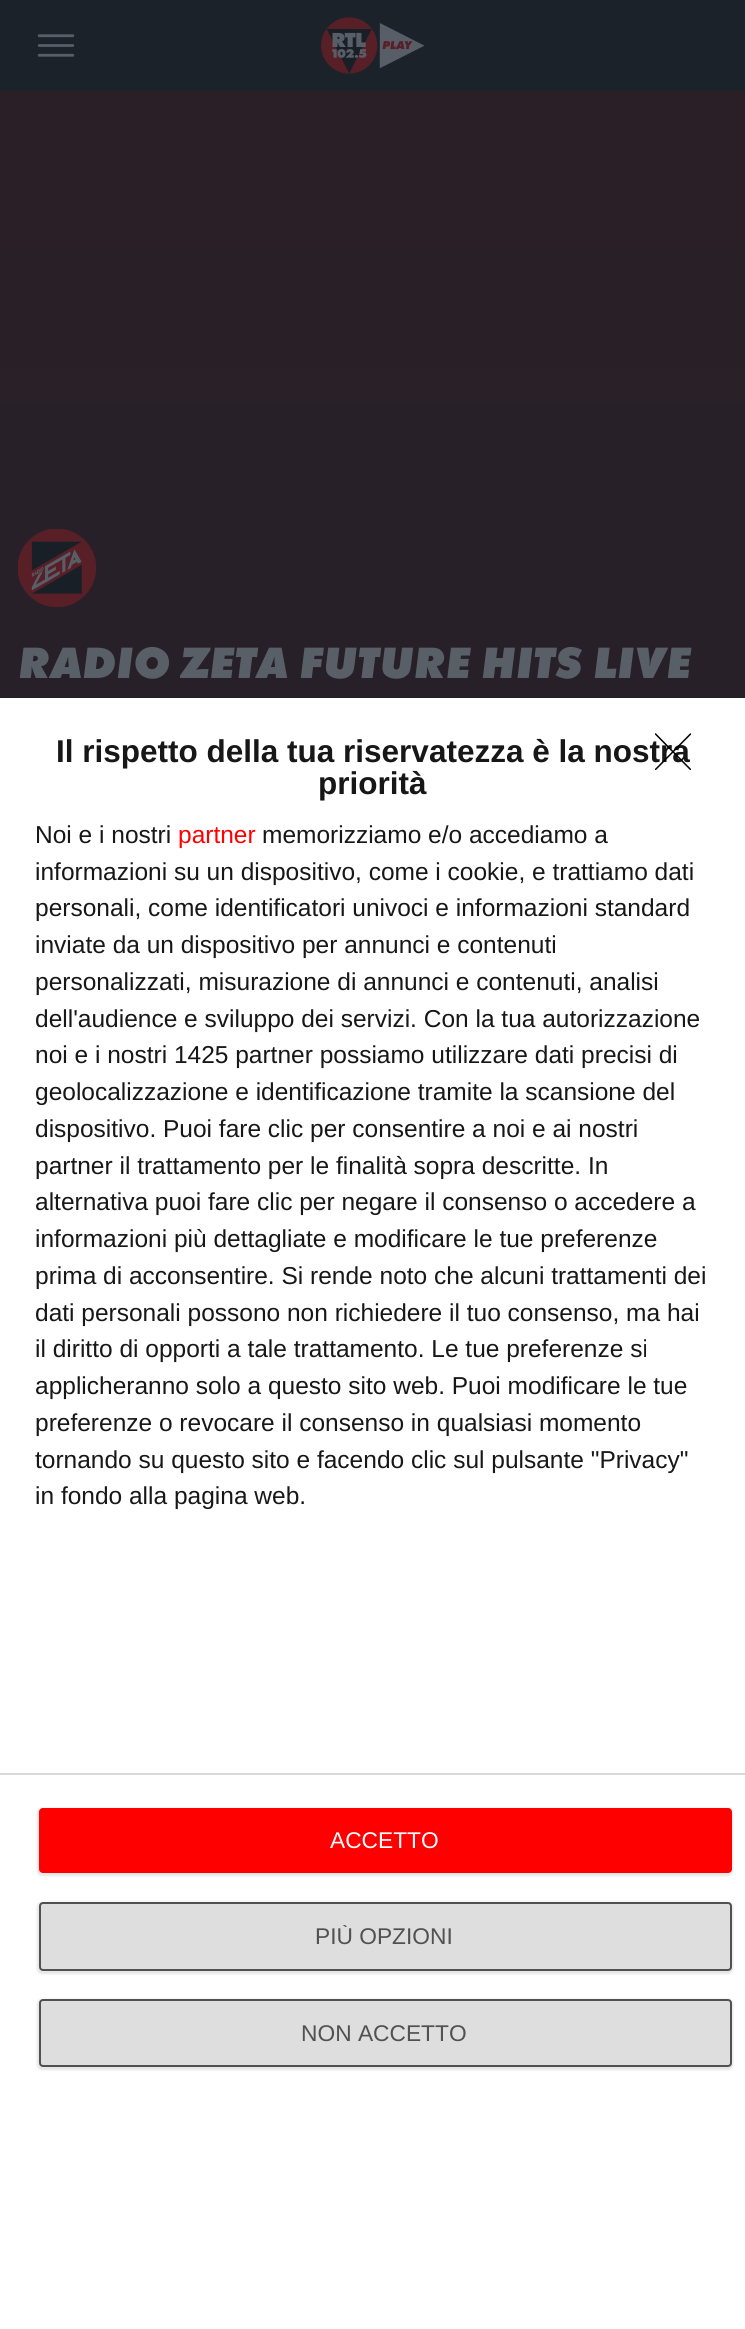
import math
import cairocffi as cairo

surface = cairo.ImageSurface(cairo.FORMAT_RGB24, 745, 2329)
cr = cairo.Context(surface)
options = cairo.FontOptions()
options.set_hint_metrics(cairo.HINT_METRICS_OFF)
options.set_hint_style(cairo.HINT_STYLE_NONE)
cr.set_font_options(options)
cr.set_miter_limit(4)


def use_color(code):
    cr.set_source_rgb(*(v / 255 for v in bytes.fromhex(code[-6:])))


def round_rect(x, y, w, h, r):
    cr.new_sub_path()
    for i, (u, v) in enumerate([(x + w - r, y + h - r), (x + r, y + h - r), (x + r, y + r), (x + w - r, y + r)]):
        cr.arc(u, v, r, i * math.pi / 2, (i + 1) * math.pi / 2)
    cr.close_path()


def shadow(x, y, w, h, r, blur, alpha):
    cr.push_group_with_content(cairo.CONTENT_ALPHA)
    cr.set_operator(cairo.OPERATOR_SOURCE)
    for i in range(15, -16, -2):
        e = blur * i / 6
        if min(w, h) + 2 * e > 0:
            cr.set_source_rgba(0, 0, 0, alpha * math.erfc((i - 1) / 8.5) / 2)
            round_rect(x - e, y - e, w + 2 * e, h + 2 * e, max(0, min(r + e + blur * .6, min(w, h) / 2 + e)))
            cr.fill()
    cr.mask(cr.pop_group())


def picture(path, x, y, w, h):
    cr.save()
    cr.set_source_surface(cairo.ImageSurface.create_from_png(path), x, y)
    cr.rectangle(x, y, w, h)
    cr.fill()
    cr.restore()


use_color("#ffffff")
cr.paint()
gradient = cairo.LinearGradient(373, 0, 373, 2329)
gradient.add_color_stop_rgba(0, 0.169, 0.122, 0.153, 1)
gradient.add_color_stop_rgba(1, 0.11, 0.133, 0.165, 1)
cr.set_source(gradient)
cr.rectangle(0, 91, 745, 607)
cr.fill()
use_color("#1c222a")
cr.rectangle(0, 0, 745, 91)
cr.fill()
picture("img1.png", 37, 34, 38, 23)
picture("img2.png", 321, 17, 104, 57)
picture("img3.png", 18, 529, 78, 78)
cr.select_font_face("Futura PT ExtraBold", cairo.FONT_SLANT_ITALIC)
cr.set_font_size(45.5)
use_color("#595f67")
cr.move_to(18, 678)
cr.show_text("RADIO ZETA FUTURE HITS LIVE")
cr.select_font_face("Liberation Sans", cairo.FONT_SLANT_NORMAL, cairo.FONT_WEIGHT_BOLD)
cr.set_font_size(31.5)
use_color("#171717")
cr.move_to(56, 762)
cr.show_text("Il rispetto della tua riservatezza è la nostra")
cr.save()
cr.rectangle(655, 733, 36, 37)
cr.clip()
cr.new_path()
cr.move_to(655.5, 734)
cr.line_to(690.5, 769.5)
cr.move_to(690.5, 734)
cr.line_to(655.5, 769.5)
use_color("#000000")
cr.set_line_width(1.5)
cr.set_line_cap(cairo.LINE_CAP_ROUND)
cr.set_line_join(cairo.LINE_JOIN_ROUND)
cr.stroke()
cr.restore()
cr.move_to(318, 794)
cr.show_text("priorità")
cr.select_font_face("Liberation Sans")
cr.set_font_size(24.5)
cr.move_to(35, 843)
cr.show_text("Noi e i nostri")
use_color("#ff0000")
cr.move_to(178, 843)
cr.show_text("partner")
use_color("#171717")
cr.move_to(262, 843)
cr.show_text("memorizziamo e/o accediamo a")
cr.move_to(35, 880)
cr.show_text("informazioni su un dispositivo, come i cookie, e trattiamo dati")
cr.move_to(35, 916)
cr.show_text("personali, come identificatori univoci e informazioni standard")
cr.move_to(35, 953)
cr.show_text("inviate da un dispositivo per annunci e contenuti")
cr.move_to(35, 990)
cr.show_text("personalizzati, misurazione di annunci e contenuti, analisi")
cr.move_to(35, 1027)
cr.show_text("dell'audience e sviluppo dei servizi. Con la tua autorizzazione")
cr.move_to(35, 1063)
cr.show_text("noi e i nostri 1425 partner possiamo utilizzare dati precisi di")
cr.move_to(35, 1100)
cr.show_text("geolocalizzazione e identificazione tramite la scansione del")
cr.move_to(35, 1137)
cr.show_text("dispositivo. Puoi fare clic per consentire a noi e ai nostri")
cr.move_to(35, 1174)
cr.show_text("partner il trattamento per le finalità sopra descritte. In")
cr.move_to(35, 1210)
cr.show_text("alternativa puoi fare clic per negare il consenso o accedere a")
cr.move_to(35, 1247)
cr.show_text("informazioni più dettagliate e modificare le tue preferenze")
cr.move_to(35, 1284)
cr.show_text("prima di acconsentire. Si rende noto che alcuni trattamenti dei")
cr.move_to(35, 1321)
cr.show_text("dati personali possono non richiedere il tuo consenso, ma hai")
cr.move_to(35, 1357)
cr.show_text("il diritto di opporti a tale trattamento. Le tue preferenze si")
cr.move_to(35, 1394)
cr.show_text("applicheranno solo a questo sito web. Puoi modificare le tue")
cr.move_to(35, 1431)
cr.show_text("preferenze o revocare il consenso in qualsiasi momento")
cr.move_to(35, 1468)
cr.show_text("tornando su questo sito e facendo clic sul pulsante \"Privacy\"")
cr.move_to(35, 1504)
cr.show_text("in fondo alla pagina web.")
use_color("#d8d8d8")
cr.rectangle(0, 1773, 745, 2)
cr.fill()
use_color("#000000")
shadow(37, 1808, 696, 68, 5, 1, 0.1)
use_color("#ff0000")
round_rect(39, 1808, 693, 65, 4)
cr.fill()
cr.set_font_size(22.75)
use_color("#ffffff")
cr.move_to(330, 1848)
cr.show_text("ACCETTO")
use_color("#000000")
shadow(37, 1902, 696, 72, 5, 1, 0.1)
use_color("#dedede")
round_rect(40, 1903, 691, 67, 3)
cr.fill_preserve()
use_color("#515151")
cr.stroke()
cr.save()
cr.rectangle(315, 1925, 138, 23)
cr.clip()
cr.move_to(315, 1944)
cr.show_text("PIÙ OPZIONI")
cr.restore()
use_color("#000000")
shadow(37, 1999, 696, 71, 5, 1, 0.1)
use_color("#dedede")
round_rect(40, 2000, 691, 66, 3)
cr.fill_preserve()
use_color("#515151")
cr.stroke()
cr.move_to(301, 2041)
cr.show_text("NON ACCETTO")
surface.write_to_png("result.png")
